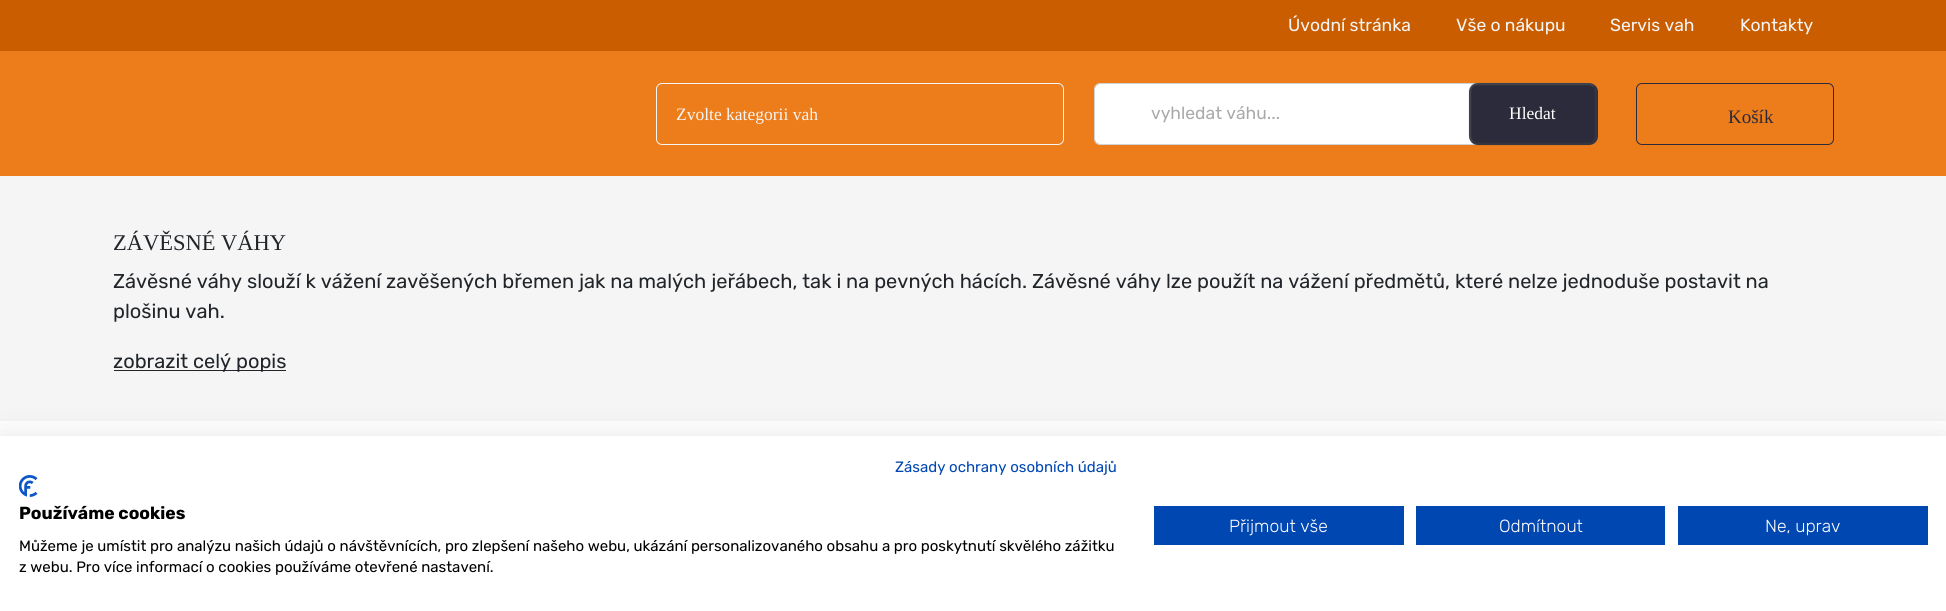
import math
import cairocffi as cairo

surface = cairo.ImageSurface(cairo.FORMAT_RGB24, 1946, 611)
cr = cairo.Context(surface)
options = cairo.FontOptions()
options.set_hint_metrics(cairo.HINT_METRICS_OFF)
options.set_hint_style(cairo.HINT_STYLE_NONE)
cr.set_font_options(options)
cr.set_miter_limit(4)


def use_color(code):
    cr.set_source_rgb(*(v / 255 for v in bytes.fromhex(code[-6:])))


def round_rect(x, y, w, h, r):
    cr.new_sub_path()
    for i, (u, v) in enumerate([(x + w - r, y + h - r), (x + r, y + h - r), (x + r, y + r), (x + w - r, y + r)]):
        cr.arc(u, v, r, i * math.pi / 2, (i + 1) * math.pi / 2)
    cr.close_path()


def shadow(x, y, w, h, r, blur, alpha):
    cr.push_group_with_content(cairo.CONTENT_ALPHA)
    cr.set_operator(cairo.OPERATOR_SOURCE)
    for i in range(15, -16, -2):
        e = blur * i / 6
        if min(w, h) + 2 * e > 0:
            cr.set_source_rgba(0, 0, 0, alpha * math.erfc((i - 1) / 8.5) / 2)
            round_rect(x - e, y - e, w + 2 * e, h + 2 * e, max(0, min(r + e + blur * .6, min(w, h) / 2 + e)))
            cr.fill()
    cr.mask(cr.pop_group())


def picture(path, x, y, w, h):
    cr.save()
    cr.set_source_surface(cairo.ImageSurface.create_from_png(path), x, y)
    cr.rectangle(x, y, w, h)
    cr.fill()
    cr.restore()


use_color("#ffffff")
cr.paint()
use_color("#c95d00")
cr.rectangle(0, 0, 1946, 51)
cr.fill()
cr.select_font_face("Rubik")
cr.set_font_size(17.5)
use_color("#f5f5f5")
cr.move_to(1288, 31)
cr.show_text("Úvodní stránka")
cr.move_to(1456, 31)
cr.show_text("Vše o nákupu")
cr.move_to(1610, 31)
cr.show_text("Servis vah")
cr.move_to(1740, 31)
cr.show_text("Kontakty")
use_color("#ed7c1b")
cr.rectangle(0, 51, 1946, 125)
cr.fill()
round_rect(656.5, 83.5, 407, 61, 5.5)
use_color("#f5f5f5")
cr.set_line_width(1)
cr.stroke()
cr.select_font_face("Liberation Serif")
cr.move_to(676, 120)
cr.show_text("Zvolte kategorii vah")
use_color("#ffffff")
cr.new_path()
cr.move_to(1100, 84)
cr.line_to(1476, 84)
cr.line_to(1476, 144)
cr.line_to(1100, 144)
cr.curve_to(1097, 144, 1095, 142, 1095, 139)
cr.line_to(1095, 89)
cr.curve_to(1095, 86, 1097, 84, 1100, 84)
cr.close_path()
cr.fill()
cr.new_path()
cr.move_to(1100, 83.5)
cr.line_to(1477.5, 83.5)
cr.line_to(1477.5, 144.5)
cr.line_to(1100, 144.5)
cr.curve_to(1097, 144.5, 1094.5, 142, 1094.5, 139)
cr.line_to(1094.5, 89)
cr.curve_to(1094.5, 86, 1097, 83.5, 1100, 83.5)
cr.close_path()
use_color("#ced4da")
cr.stroke()
cr.select_font_face("Rubik")
use_color("#aaaaaa")
cr.move_to(1151, 119)
cr.show_text("vyhledat váhu...")
use_color("#2b2b3b")
round_rect(1469, 83, 129, 62, 9)
cr.fill()
cr.new_path()
cr.move_to(1594, 86)
cr.curve_to(1595.5, 87.5, 1596, 89.5, 1596, 91)
cr.line_to(1596, 136)
cr.curve_to(1596, 138, 1595.5, 140, 1594, 141.5)
cr.curve_to(1592.5, 143, 1590.5, 144, 1589, 144)
cr.line_to(1477.5, 144)
cr.curve_to(1475.5, 144, 1473.5, 143, 1472, 141.5)
cr.set_source_rgba(0.31, 0.31, 0.31, 0.3)
cr.set_line_width(2.5)
cr.stroke()
cr.new_path()
cr.move_to(1472, 141.5)
cr.curve_to(1471, 140, 1470, 138, 1470, 136)
cr.line_to(1470, 91)
cr.curve_to(1470, 89.5, 1471, 87.5, 1472, 86)
cr.curve_to(1473.5, 84.5, 1475.5, 84, 1477.5, 84)
cr.line_to(1589, 84)
cr.curve_to(1590.5, 84, 1592.5, 84.5, 1594, 86)
cr.set_source_rgba(0.463, 0.463, 0.463, 0.3)
cr.stroke()
cr.select_font_face("Liberation Serif")
use_color("#ffffff")
cr.move_to(1509, 119)
cr.show_text("Hledat")
round_rect(1636.5, 83.5, 197, 61, 5.5)
use_color("#2b2b3b")
cr.set_line_width(1)
cr.stroke()
cr.set_font_size(19)
cr.move_to(1728, 123)
cr.show_text("Košík")
use_color("#f5f5f5")
cr.rectangle(0, 176, 1946, 245)
cr.fill()
cr.set_font_size(22.5)
use_color("#212529")
cr.move_to(113, 250)
cr.show_text("ZÁVĚSNÉ VÁHY")
cr.select_font_face("Rubik")
cr.set_font_size(20)
cr.move_to(113, 288)
cr.show_text("Závěsné váhy slouží k vážení zavěšených břemen jak na malých jeřábech, tak i na pevných hácích. Závěsné váhy lze použít na vážení předmětů, které nelze jednoduše postavit na")
cr.move_to(113, 318)
cr.show_text("plošinu vah.")
cr.rectangle(114, 370, 172, 1)
cr.fill()
cr.move_to(113, 368)
cr.show_text("zobrazit celý popis")
use_color("#000000")
shadow(0, 436, 1946, 175, 0, 15, 0.1)
use_color("#ffffff")
cr.rectangle(0, 436, 1946, 175)
cr.fill()
cr.set_font_size(15)
use_color("#0047b2")
cr.move_to(895, 472)
cr.show_text("Zásady ochrany osobních údajů")
picture("img1.png", 19, 475, 19, 22)
cr.select_font_face("Rubik", cairo.FONT_SLANT_NORMAL, cairo.FONT_WEIGHT_BOLD)
cr.set_font_size(17.5)
use_color("#000000")
cr.move_to(19, 519)
cr.show_text("Používáme cookies")
cr.select_font_face("Rubik")
cr.set_font_size(15)
cr.move_to(19, 551)
cr.show_text("Můžeme je umístit pro analýzu našich údajů o návštěvnících, pro zlepšení našeho webu, ukázání personalizovaného obsahu a pro poskytnutí skvělého zážitku")
cr.move_to(19, 572)
cr.show_text("z webu. Pro více informací o cookies používáme otevřené nastavení.")
use_color("#0047b2")
cr.rectangle(1154, 506, 250, 39)
cr.fill()
cr.select_font_face("Rubik Light")
cr.set_font_size(17.5)
use_color("#ffffff")
cr.move_to(1229, 532)
cr.show_text("Přijmout vše")
use_color("#0047b2")
cr.rectangle(1416, 506, 249, 39)
cr.fill()
use_color("#ffffff")
cr.move_to(1499, 532)
cr.show_text("Odmítnout")
use_color("#0047b2")
cr.rectangle(1678, 506, 250, 39)
cr.fill()
use_color("#ffffff")
cr.move_to(1765, 532)
cr.show_text("Ne, uprav")
surface.write_to_png("result.png")
